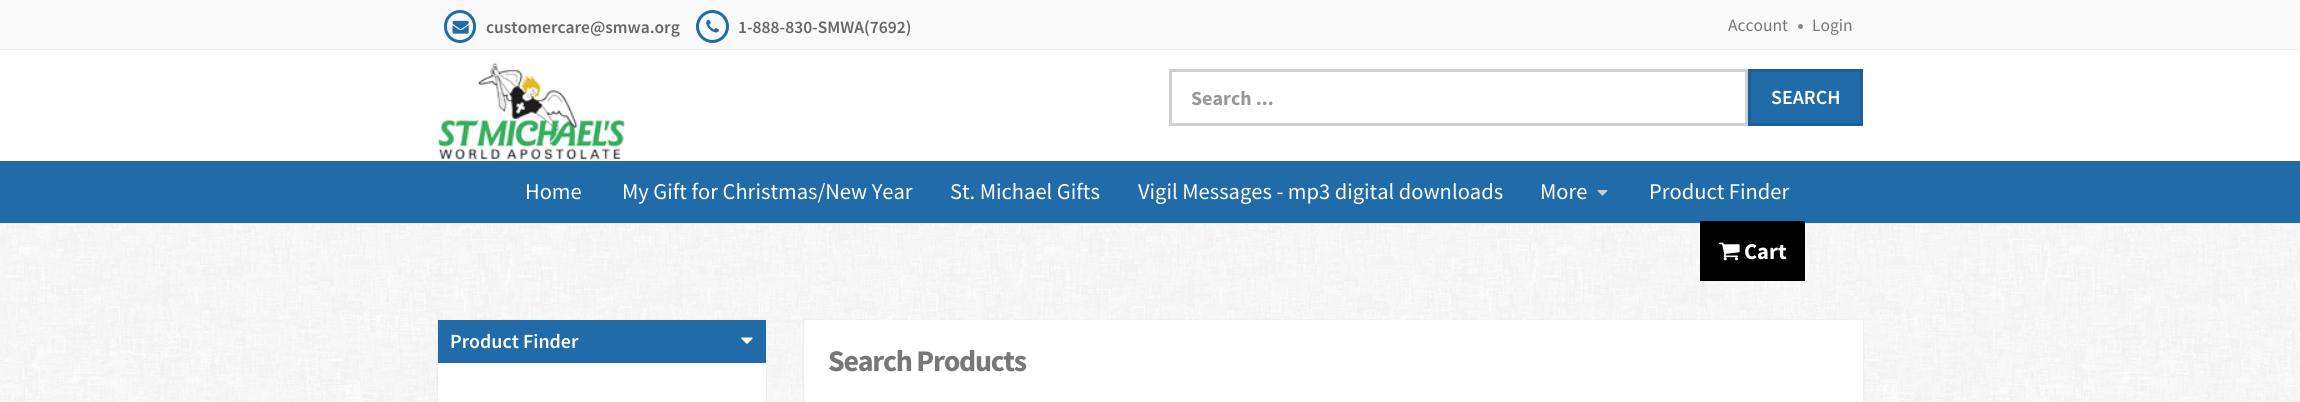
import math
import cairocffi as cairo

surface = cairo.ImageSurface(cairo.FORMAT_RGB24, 2300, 402)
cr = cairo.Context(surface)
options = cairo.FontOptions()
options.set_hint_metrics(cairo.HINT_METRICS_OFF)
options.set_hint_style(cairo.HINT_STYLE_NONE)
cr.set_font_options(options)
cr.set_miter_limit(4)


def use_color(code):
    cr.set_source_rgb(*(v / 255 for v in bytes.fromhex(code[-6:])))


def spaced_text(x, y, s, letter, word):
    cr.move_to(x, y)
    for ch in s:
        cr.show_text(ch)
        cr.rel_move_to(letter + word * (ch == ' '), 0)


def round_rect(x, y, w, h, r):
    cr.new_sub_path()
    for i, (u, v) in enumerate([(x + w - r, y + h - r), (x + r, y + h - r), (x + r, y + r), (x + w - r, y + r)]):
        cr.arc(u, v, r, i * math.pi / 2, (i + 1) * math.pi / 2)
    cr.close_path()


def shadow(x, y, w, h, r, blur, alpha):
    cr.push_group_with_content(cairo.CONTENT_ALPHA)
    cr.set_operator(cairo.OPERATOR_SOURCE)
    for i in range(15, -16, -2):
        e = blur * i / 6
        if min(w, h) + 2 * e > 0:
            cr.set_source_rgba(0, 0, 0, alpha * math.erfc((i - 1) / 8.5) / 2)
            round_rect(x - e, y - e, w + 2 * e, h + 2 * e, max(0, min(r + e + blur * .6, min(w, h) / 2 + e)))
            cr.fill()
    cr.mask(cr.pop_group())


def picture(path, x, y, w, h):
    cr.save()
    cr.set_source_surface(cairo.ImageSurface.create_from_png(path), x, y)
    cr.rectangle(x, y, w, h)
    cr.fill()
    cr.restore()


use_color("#ffffff")
cr.paint()
picture("img1.png", 0, 224, 2300, 178)
use_color("#f9f9f9")
cr.rectangle(0, 0, 2300, 49)
cr.fill()
use_color("#ebebeb")
cr.rectangle(0, 49, 2300, 1)
cr.fill()
round_rect(445.5, 11.5, 29, 30, 14.5)
use_color("#206ba8")
cr.set_line_width(3)
cr.stroke()
picture("img2.png", 452, 20, 17, 14)
cr.select_font_face("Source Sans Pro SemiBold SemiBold")
cr.set_font_size(17.5)
use_color("#666666")
cr.move_to(486, 33)
cr.show_text("customercare@smwa.org")
cr.new_path()
cr.arc(712.5, 26.5, 15, 0, 2 * math.pi)
use_color("#206ba8")
cr.stroke()
picture("img3.png", 706, 19, 13, 14)
use_color("#666666")
cr.move_to(738, 33)
cr.show_text("1-888-830-SMWA(7692)")
cr.select_font_face("Source Sans Pro")
use_color("#777777")
cr.move_to(1728, 31)
cr.show_text("Account")
use_color("#888888")
cr.new_path()
cr.arc(1800.5, 26.5, 2.5, 0, 2 * math.pi)
cr.fill()
use_color("#777777")
cr.move_to(1812, 31)
cr.show_text("Login")
picture("img4.png", 438, 62, 187, 99)
cr.rectangle(1170.5, 70.5, 576, 54)
use_color("#d0d0d0")
cr.stroke()
cr.select_font_face("Source Sans Pro", cairo.FONT_SLANT_NORMAL, cairo.FONT_WEIGHT_BOLD)
cr.set_font_size(20)
use_color("#999999")
cr.move_to(1191, 105)
cr.show_text("Search ...")
use_color("#206ba8")
cr.rectangle(1749.5, 70.5, 112, 54)
cr.fill_preserve()
use_color("#1d6097")
cr.stroke()
cr.select_font_face("Source Sans Pro SemiBold SemiBold")
use_color("#ffffff")
cr.move_to(1771, 104)
cr.show_text("SEARCH")
use_color("#206ba8")
cr.rectangle(0, 161, 2300, 62)
cr.fill()
use_color("#ebebeb")
cr.rectangle(0, 223, 2300, 1)
cr.fill()
cr.select_font_face("Source Sans Pro")
cr.set_font_size(22.5)
use_color("#ffffff")
cr.move_to(525, 199)
cr.show_text("Home")
cr.move_to(622, 199)
cr.show_text("My Gift for Christmas/New Year")
cr.move_to(950, 199)
cr.show_text("St. Michael Gifts")
cr.move_to(1138, 199)
cr.show_text("Vigil Messages - mp3 digital downloads")
cr.move_to(1540, 199)
cr.show_text("More")
picture("img5.png", 1597, 190, 11, 6)
cr.move_to(1649, 199)
cr.show_text("Product Finder")
use_color("#000000")
cr.rectangle(1700, 221, 105, 60)
cr.fill()
picture("img6.png", 1718, 242, 22, 19)
cr.select_font_face("Source Sans Pro", cairo.FONT_SLANT_NORMAL, cairo.FONT_WEIGHT_BOLD)
use_color("#ffffff")
cr.move_to(1744, 259)
cr.show_text("Cart")
use_color("#000000")
shadow(438, 321, 328, 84, 0, 1, 0.1)
use_color("#ffffff")
cr.rectangle(438, 363, 328, 39)
cr.fill()
use_color("#206ba8")
cr.rectangle(438, 320, 328, 43)
cr.fill()
cr.select_font_face("Source Sans Pro SemiBold SemiBold")
cr.set_font_size(20)
use_color("#ffffff")
cr.move_to(450, 348)
cr.show_text("Product Finder")
picture("img7.png", 741, 337, 12, 7)
use_color("#000000")
shadow(804, 321, 1059, 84, 0, 1, 0.1)
use_color("#ffffff")
cr.rectangle(804, 320, 1059, 82)
cr.fill()
cr.select_font_face("Source Sans Pro", cairo.FONT_SLANT_NORMAL, cairo.FONT_WEIGHT_BOLD)
cr.set_font_size(30)
use_color("#777777")
spaced_text(828, 371, "Search Products", -1.25, 0)
surface.write_to_png("result.png")
